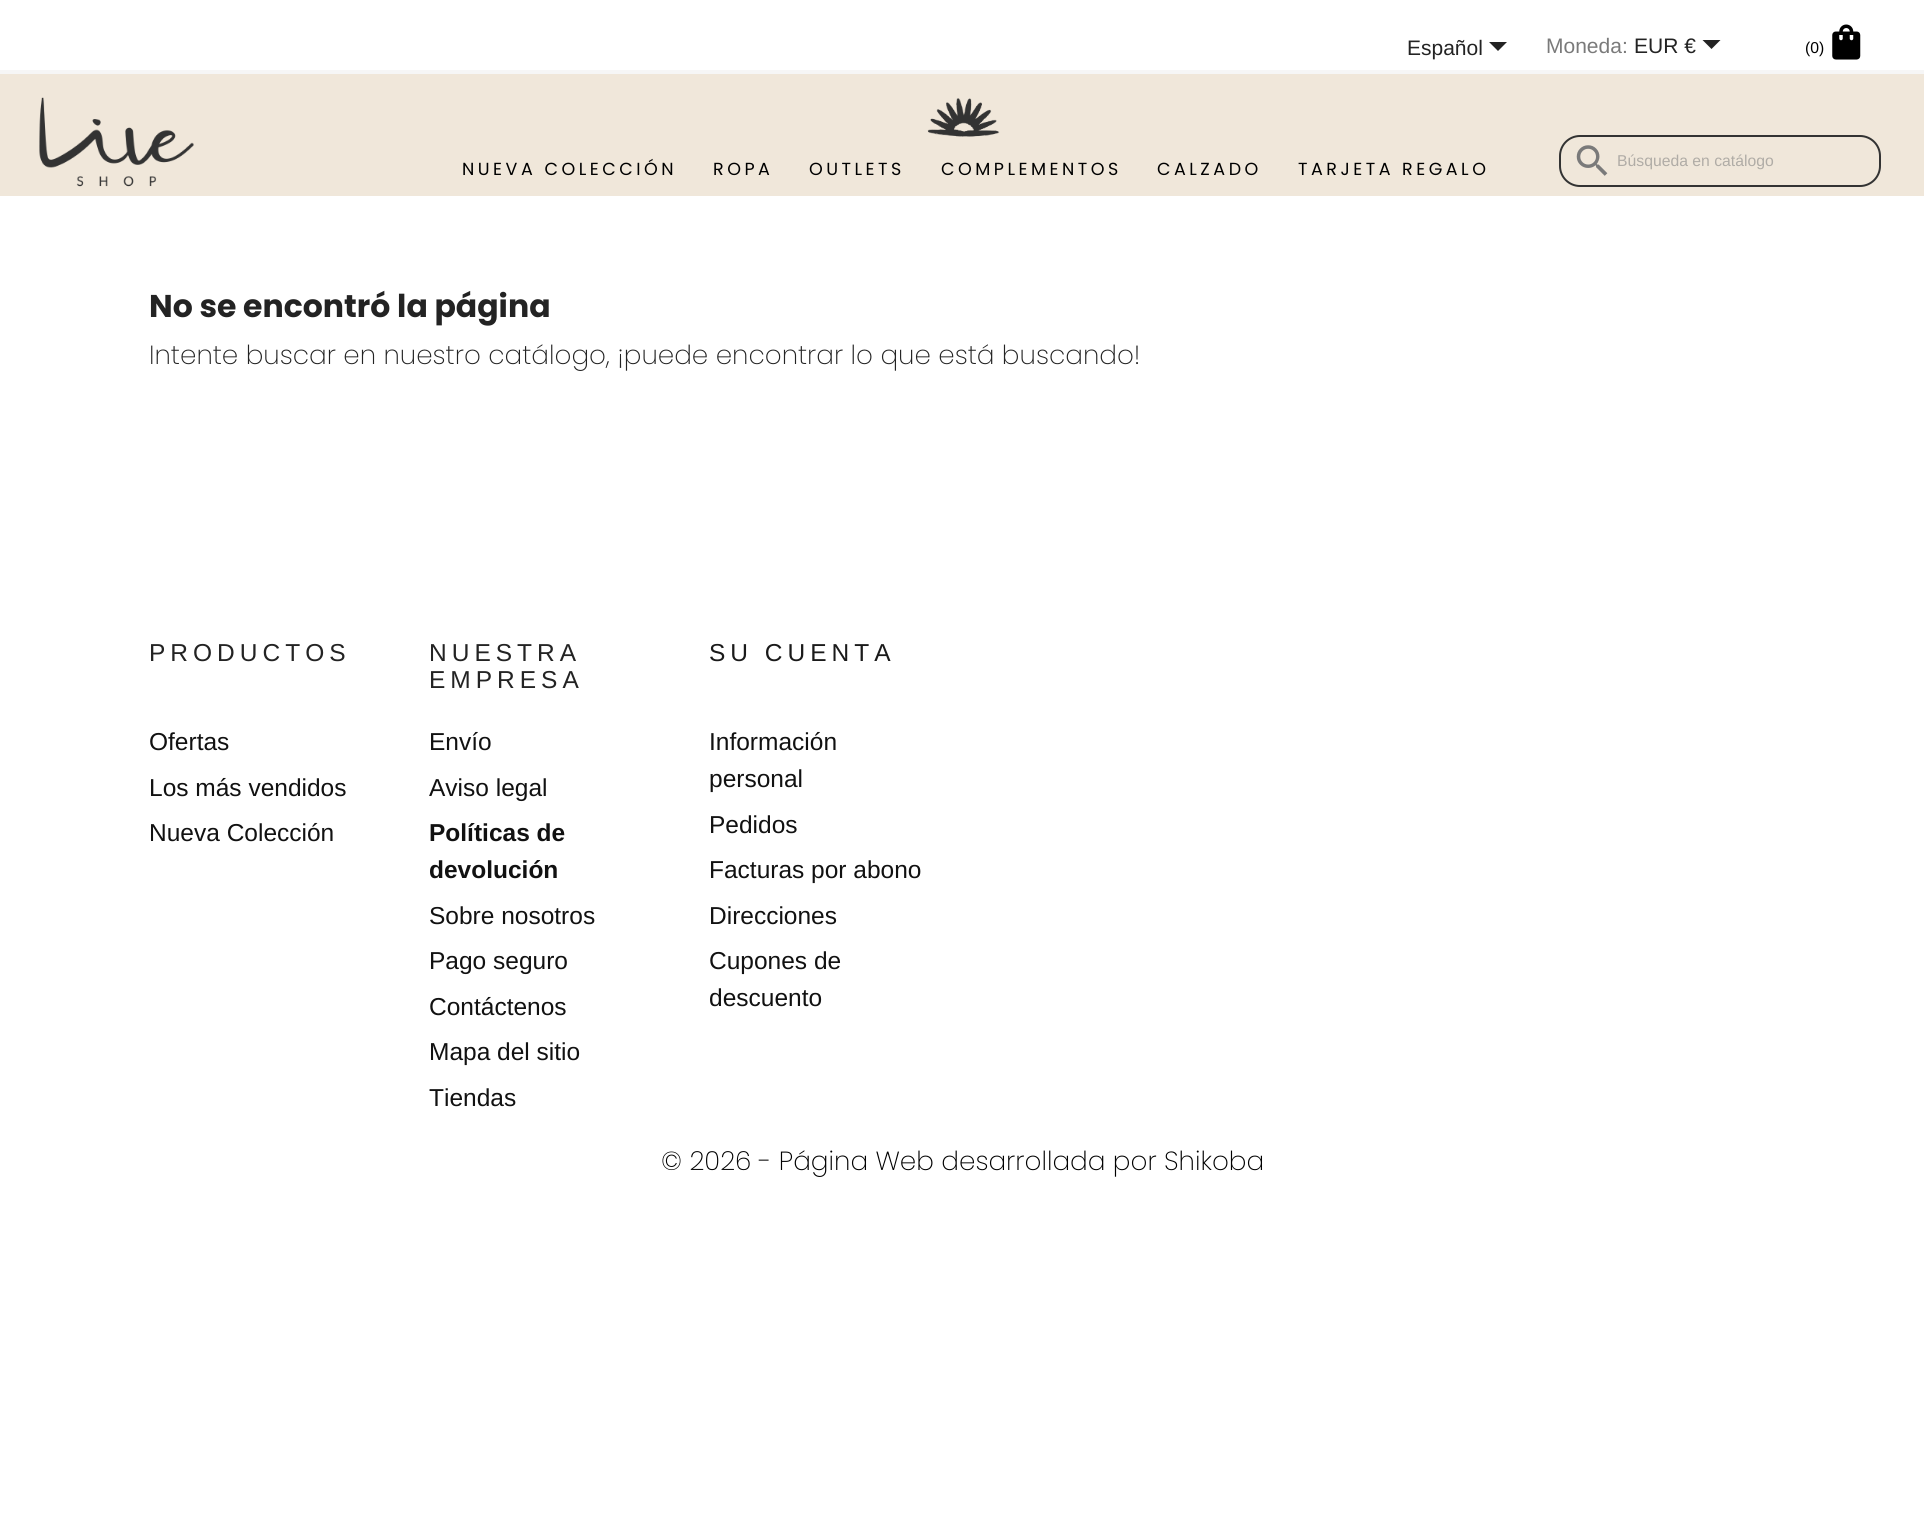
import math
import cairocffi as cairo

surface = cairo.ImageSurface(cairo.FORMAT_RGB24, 1924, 1527)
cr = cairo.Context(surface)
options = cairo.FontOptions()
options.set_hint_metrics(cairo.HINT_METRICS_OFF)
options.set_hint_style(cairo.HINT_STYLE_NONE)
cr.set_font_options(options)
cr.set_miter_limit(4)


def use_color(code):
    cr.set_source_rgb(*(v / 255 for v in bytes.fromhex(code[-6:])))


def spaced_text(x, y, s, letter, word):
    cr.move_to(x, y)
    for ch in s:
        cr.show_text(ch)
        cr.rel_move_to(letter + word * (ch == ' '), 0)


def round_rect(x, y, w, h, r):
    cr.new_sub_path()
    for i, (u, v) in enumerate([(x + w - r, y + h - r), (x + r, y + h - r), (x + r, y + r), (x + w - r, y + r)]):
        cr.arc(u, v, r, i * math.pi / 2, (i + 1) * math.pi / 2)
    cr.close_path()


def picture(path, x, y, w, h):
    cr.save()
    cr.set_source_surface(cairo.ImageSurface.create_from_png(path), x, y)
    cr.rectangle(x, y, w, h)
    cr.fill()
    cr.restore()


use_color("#ffffff")
cr.paint()
use_color("#f6f6f6")
cr.rectangle(0, 70, 1924, 4)
cr.fill()
cr.select_font_face("Liberation Sans")
cr.set_font_size(21)
use_color("#232323")
cr.move_to(1407, 55)
cr.show_text("Español")
cr.new_path()
cr.move_to(1489, 42)
cr.line_to(1507, 42)
cr.line_to(1498, 51)
cr.close_path()
cr.fill()
use_color("#7a7a7a")
cr.move_to(1546, 53)
cr.show_text("Moneda:")
use_color("#232323")
cr.move_to(1634, 53)
cr.show_text("EUR €")
cr.new_path()
cr.move_to(1702.5, 40)
cr.line_to(1720.5, 40)
cr.line_to(1711.5, 49)
cr.close_path()
cr.fill()
cr.set_font_size(15.75)
use_color("#000000")
cr.move_to(1805, 53)
cr.show_text("(0)")
picture("img1.png", 1832, 24, 29, 36)
use_color("#f0e7da")
cr.rectangle(0, 74, 1924, 122)
cr.fill()
picture("img2.png", 39, 97, 155, 90)
picture("img3.png", 927, 98, 73, 39)
cr.select_font_face("Poppins")
cr.set_font_size(17.5)
use_color("#000000")
spaced_text(462, 175, "NUEVA COLECCIÓN", 3.5, 0)
spaced_text(713, 175, "ROPA", 3.5, 0)
spaced_text(809, 175, "OUTLETS", 3.5, 0)
spaced_text(941, 175, "COMPLEMENTOS", 3.5, 0)
spaced_text(1157, 175, "CALZADO", 3.5, 0)
spaced_text(1298, 175, "TARJETA REGALO", 3.5, 0)
round_rect(1560, 136, 320, 50, 20)
use_color("#333333")
cr.stroke()
picture("img4.png", 1576, 145, 32, 31)
cr.select_font_face("Liberation Sans")
cr.set_font_size(15.75)
use_color("#b0aca6")
cr.move_to(1617, 166)
cr.show_text("Búsqueda en catálogo")
cr.select_font_face("Poppins", cairo.FONT_SLANT_NORMAL, cairo.FONT_WEIGHT_BOLD)
cr.set_font_size(31.5)
use_color("#232323")
cr.move_to(149, 317)
cr.show_text("No se encontró la página")
cr.select_font_face("Poppins ExtraLight")
cr.set_font_size(26.25)
cr.move_to(149, 364)
cr.show_text("Intente buscar en nuestro catálogo, ¡puede encontrar lo que está buscando!")
cr.select_font_face("Liberation Sans")
cr.set_font_size(24.5)
spaced_text(149, 661, "PRODUCTOS", 5, 0)
use_color("#111111")
cr.move_to(149, 750)
cr.show_text("Ofertas")
cr.move_to(149, 796)
cr.show_text("Los más vendidos")
cr.move_to(149, 841)
cr.show_text("Nueva Colección")
use_color("#232323")
spaced_text(429, 661, "NUESTRA", 5, 0)
spaced_text(429, 688, "EMPRESA", 5, 0)
use_color("#111111")
cr.move_to(429, 750)
cr.show_text("Envío")
cr.move_to(429, 796)
cr.show_text("Aviso legal")
cr.select_font_face("Liberation Sans", cairo.FONT_SLANT_NORMAL, cairo.FONT_WEIGHT_BOLD)
cr.move_to(429, 841)
cr.show_text("Políticas de")
cr.move_to(429, 878)
cr.show_text("devolución")
cr.select_font_face("Liberation Sans")
cr.move_to(429, 924)
cr.show_text("Sobre nosotros")
cr.move_to(429, 969)
cr.show_text("Pago seguro")
cr.move_to(429, 1015)
cr.show_text("Contáctenos")
cr.move_to(429, 1060)
cr.show_text("Mapa del sitio")
cr.move_to(429, 1106)
cr.show_text("Tiendas")
use_color("#1a1a1a")
spaced_text(709, 661, "SU CUENTA", 5, 0)
use_color("#111111")
cr.move_to(709, 750)
cr.show_text("Información")
cr.move_to(709, 787)
cr.show_text("personal")
cr.move_to(709, 833)
cr.show_text("Pedidos")
cr.move_to(709, 878)
cr.show_text("Facturas por abono")
cr.move_to(709, 924)
cr.show_text("Direcciones")
cr.move_to(709, 969)
cr.show_text("Cupones de")
cr.move_to(709, 1006)
cr.show_text("descuento")
cr.select_font_face("Poppins ExtraLight")
cr.set_font_size(26.25)
use_color("#000000")
cr.move_to(661, 1170)
cr.show_text("© 2026 - Página Web desarrollada por Shikoba")
surface.write_to_png("result.png")
